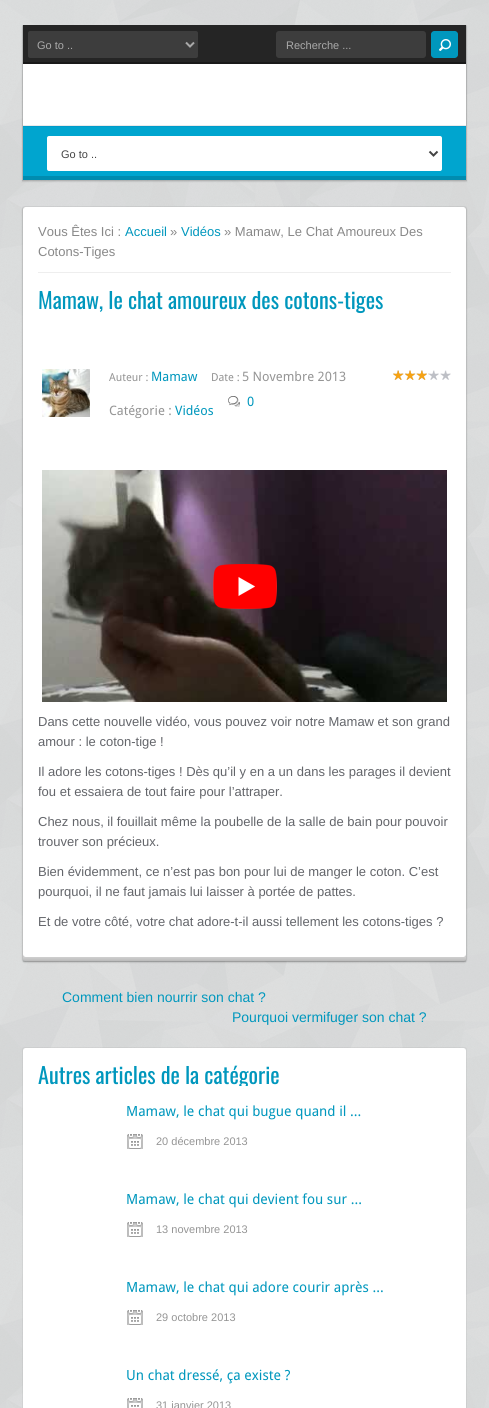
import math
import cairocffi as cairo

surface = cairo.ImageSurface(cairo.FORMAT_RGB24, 489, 1408)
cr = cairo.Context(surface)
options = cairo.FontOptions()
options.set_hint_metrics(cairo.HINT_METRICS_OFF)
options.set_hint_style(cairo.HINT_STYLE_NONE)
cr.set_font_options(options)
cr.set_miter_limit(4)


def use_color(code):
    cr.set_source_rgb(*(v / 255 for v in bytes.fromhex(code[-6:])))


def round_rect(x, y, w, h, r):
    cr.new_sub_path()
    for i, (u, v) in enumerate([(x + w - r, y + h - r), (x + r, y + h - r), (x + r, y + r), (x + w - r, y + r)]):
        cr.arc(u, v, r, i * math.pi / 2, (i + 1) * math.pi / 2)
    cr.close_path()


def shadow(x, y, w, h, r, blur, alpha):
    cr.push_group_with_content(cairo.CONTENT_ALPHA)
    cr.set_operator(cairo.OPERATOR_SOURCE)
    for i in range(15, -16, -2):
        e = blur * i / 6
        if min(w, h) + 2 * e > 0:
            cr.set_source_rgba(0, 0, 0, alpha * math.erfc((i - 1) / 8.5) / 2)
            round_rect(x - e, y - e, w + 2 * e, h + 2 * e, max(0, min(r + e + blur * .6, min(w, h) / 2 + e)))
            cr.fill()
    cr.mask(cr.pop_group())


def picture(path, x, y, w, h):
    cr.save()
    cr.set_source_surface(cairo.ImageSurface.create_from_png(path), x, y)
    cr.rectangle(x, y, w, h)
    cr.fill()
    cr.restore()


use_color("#ffffff")
cr.paint()
picture("img1.png", 0, 0, 489, 1408)
use_color("#000000")
shadow(22, 26, 445, 156, 0, 0.5, 0.1)
use_color("#ffffff")
cr.rectangle(23, 64, 443, 61)
cr.fill()
cr.set_source_rgba(0, 0, 0, 0.1)
cr.new_path()
cr.move_to(467, 25)
cr.line_to(467, 181)
cr.line_to(466, 180)
cr.line_to(466, 25)
cr.close_path()
cr.fill()
cr.new_path()
cr.move_to(467, 181)
cr.line_to(22, 181)
cr.line_to(23, 180)
cr.line_to(466, 180)
cr.close_path()
cr.fill()
cr.new_path()
cr.move_to(22, 181)
cr.line_to(22, 25)
cr.line_to(23, 25)
cr.line_to(23, 180)
cr.close_path()
cr.fill()
use_color("#252525")
cr.rectangle(23, 25, 443, 37)
cr.fill()
use_color("#191919")
cr.rectangle(23, 62, 443, 2)
cr.fill()
use_color("#3d3d3d")
round_rect(28, 31, 170, 27, 2)
cr.fill()
cr.new_path()
cr.move_to(186, 42.5)
cr.line_to(190, 46.5)
cr.line_to(194, 42.5)
use_color("#aaaaaa")
cr.stroke()
cr.select_font_face("Liberation Sans")
cr.set_font_size(11)
cr.move_to(37, 49)
cr.show_text("Go to ..")
use_color("#3d3d3d")
round_rect(276, 31, 150, 27, 3)
cr.fill()
use_color("#aaaaaa")
cr.move_to(286, 49)
cr.show_text("Recherche ...")
picture("img2.png", 431, 31, 27, 27)
picture("img3.png", 23, 126, 443, 54)
use_color("#eaeaea")
cr.rectangle(23, 125, 443, 1)
cr.fill()
use_color("#ffffff")
round_rect(47, 136, 395, 35, 2)
cr.fill()
cr.new_path()
cr.move_to(429.5, 151.5)
cr.line_to(433.5, 155.5)
cr.line_to(437.5, 151.5)
use_color("#444444")
cr.stroke()
cr.move_to(61, 158)
cr.show_text("Go to ..")
use_color("#000000")
shadow(22, 207, 445, 756, 3, 0.5, 0.1)
picture("img4.png", 23, 954, 443, 7)
cr.new_path()
cr.move_to(466, 961)
cr.line_to(464, 961.5)
cr.line_to(25, 961.5)
cr.line_to(23, 961)
cr.set_source_rgba(0, 0, 0, 0.2)
cr.set_line_width(1)
cr.stroke()
cr.new_path()
cr.move_to(23, 961)
cr.line_to(22.5, 959)
cr.line_to(22.5, 209)
cr.line_to(23, 207)
cr.line_to(25, 206.5)
cr.line_to(464, 206.5)
cr.line_to(466, 207)
cr.line_to(466.5, 209)
cr.line_to(466.5, 959)
cr.line_to(466, 961)
cr.set_source_rgba(0, 0, 0, 0.05)
cr.stroke()
use_color("#ffffff")
round_rect(23.5, 207.5, 442, 749, 2.5)
cr.fill_preserve()
cr.stroke()
use_color("#eeeeee")
cr.rectangle(38, 272, 413, 1)
cr.fill()
cr.set_font_size(13)
use_color("#888888")
cr.move_to(38, 236)
cr.show_text("Vous Êtes Ici :")
use_color("#0097bd")
cr.move_to(125, 236)
cr.show_text("Accueil")
use_color("#888888")
cr.move_to(170, 236)
cr.show_text("»")
use_color("#0097bd")
cr.move_to(181, 236)
cr.show_text("Vidéos")
use_color("#888888")
cr.move_to(224, 236)
cr.show_text("» Mamaw, Le Chat Amoureux Des")
cr.move_to(38, 256)
cr.show_text("Cotons-Tiges")
cr.select_font_face("Oswald")
cr.set_font_size(22.25)
use_color("#0097bd")
cr.move_to(38, 309)
cr.show_text("Mamaw, le chat amoureux des cotons-tiges")
picture("img5.png", 42, 369, 48, 48)
cr.select_font_face("Droid Sans")
cr.set_font_size(11)
use_color("#959595")
cr.move_to(109, 381)
cr.show_text("Auteur :")
cr.set_font_size(13)
use_color("#0097bd")
cr.move_to(151, 381)
cr.show_text("Mamaw")
cr.set_font_size(11)
use_color("#959595")
cr.move_to(211, 381)
cr.show_text("Date :")
cr.set_font_size(13)
cr.move_to(242, 381)
cr.show_text("5 Novembre 2013")
picture("img6.png", 228, 396, 12, 11)
use_color("#0097bd")
cr.move_to(247, 406)
cr.show_text("0")
use_color("#959595")
cr.move_to(109, 415)
cr.show_text("Catégorie :")
use_color("#0097bd")
cr.move_to(175, 415)
cr.show_text("Vidéos")
picture("img7.png", 393, 370, 58, 10)
picture("img8.png", 393, 370, 36, 10)
picture("img9.png", 42, 470, 405, 232)
picture("img10.png", 213, 564, 64, 45)
cr.select_font_face("Liberation Sans")
use_color("#63656a")
cr.move_to(38, 726)
cr.show_text("Dans cette nouvelle vidéo, vous pouvez voir notre Mamaw et son grand")
cr.move_to(38, 746)
cr.show_text("amour : le coton-tige !")
cr.move_to(38, 776)
cr.show_text("Il adore les cotons-tiges ! Dès qu’il y en a un dans les parages il devient")
cr.move_to(38, 796)
cr.show_text("fou et essaiera de tout faire pour l’attraper.")
cr.move_to(38, 826)
cr.show_text("Chez nous, il fouillait même la poubelle de la salle de bain pour pouvoir")
cr.move_to(38, 846)
cr.show_text("trouver son précieux.")
cr.move_to(38, 876)
cr.show_text("Bien évidemment, ce n’est pas bon pour lui de manger le coton. C’est")
cr.move_to(38, 896)
cr.show_text("pourquoi, il ne faut jamais lui laisser à portée de pattes.")
cr.move_to(38, 926)
cr.show_text("Et de votre côté, votre chat adore-t-il aussi tellement les cotons-tiges ?")
cr.set_font_size(14)
use_color("#0097bd")
cr.move_to(62, 1002)
cr.show_text("Comment bien nourrir son chat ?")
cr.move_to(232, 1022)
cr.show_text("Pourquoi vermifuger son chat ?")
cr.new_path()
cr.move_to(23, 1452)
cr.line_to(22.5, 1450)
cr.line_to(22.5, 1050)
cr.line_to(23, 1048)
cr.line_to(25, 1047.5)
cr.line_to(464, 1047.5)
cr.line_to(466, 1048)
cr.line_to(466.5, 1050)
cr.line_to(466.5, 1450)
cr.line_to(466, 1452)
cr.set_source_rgba(0, 0, 0, 0.05)
cr.stroke()
use_color("#ffffff")
round_rect(23.5, 1048.5, 442, 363, 2.5)
cr.fill_preserve()
cr.stroke()
cr.select_font_face("Oswald")
cr.set_font_size(22.25)
use_color("#0097bd")
cr.move_to(38, 1084)
cr.show_text("Autres articles de la catégorie")
use_color("#ffffff")
cr.rectangle(239, 1086, 9, 2)
cr.fill()
cr.select_font_face("Droid Sans")
cr.set_font_size(14)
use_color("#0097bd")
cr.move_to(126, 1116)
cr.show_text("Mamaw, le chat qui bugue quand il ...")
picture("img11.png", 127, 1134, 16, 15)
cr.select_font_face("Liberation Sans")
cr.set_font_size(11)
use_color("#959595")
cr.move_to(156, 1145)
cr.show_text("20 décembre 2013")
cr.select_font_face("Droid Sans")
cr.set_font_size(14)
use_color("#0097bd")
cr.move_to(126, 1204)
cr.show_text("Mamaw, le chat qui devient fou sur ...")
picture("img11.png", 127, 1222, 16, 15)
cr.select_font_face("Liberation Sans")
cr.set_font_size(11)
use_color("#959595")
cr.move_to(156, 1233)
cr.show_text("13 novembre 2013")
cr.select_font_face("Droid Sans")
cr.set_font_size(14)
use_color("#0097bd")
cr.move_to(126, 1292)
cr.show_text("Mamaw, le chat qui adore courir après ...")
picture("img11.png", 127, 1310, 16, 15)
cr.select_font_face("Liberation Sans")
cr.set_font_size(11)
use_color("#959595")
cr.move_to(156, 1321)
cr.show_text("29 octobre 2013")
cr.select_font_face("Droid Sans")
cr.set_font_size(14)
use_color("#0097bd")
cr.move_to(126, 1380)
cr.show_text("Un chat dressé, ça existe ?")
picture("img12.png", 127, 1398, 16, 10)
cr.select_font_face("Liberation Sans")
cr.set_font_size(11)
use_color("#959595")
cr.move_to(156, 1409)
cr.show_text("31 janvier 2013")
surface.write_to_png("result.png")
